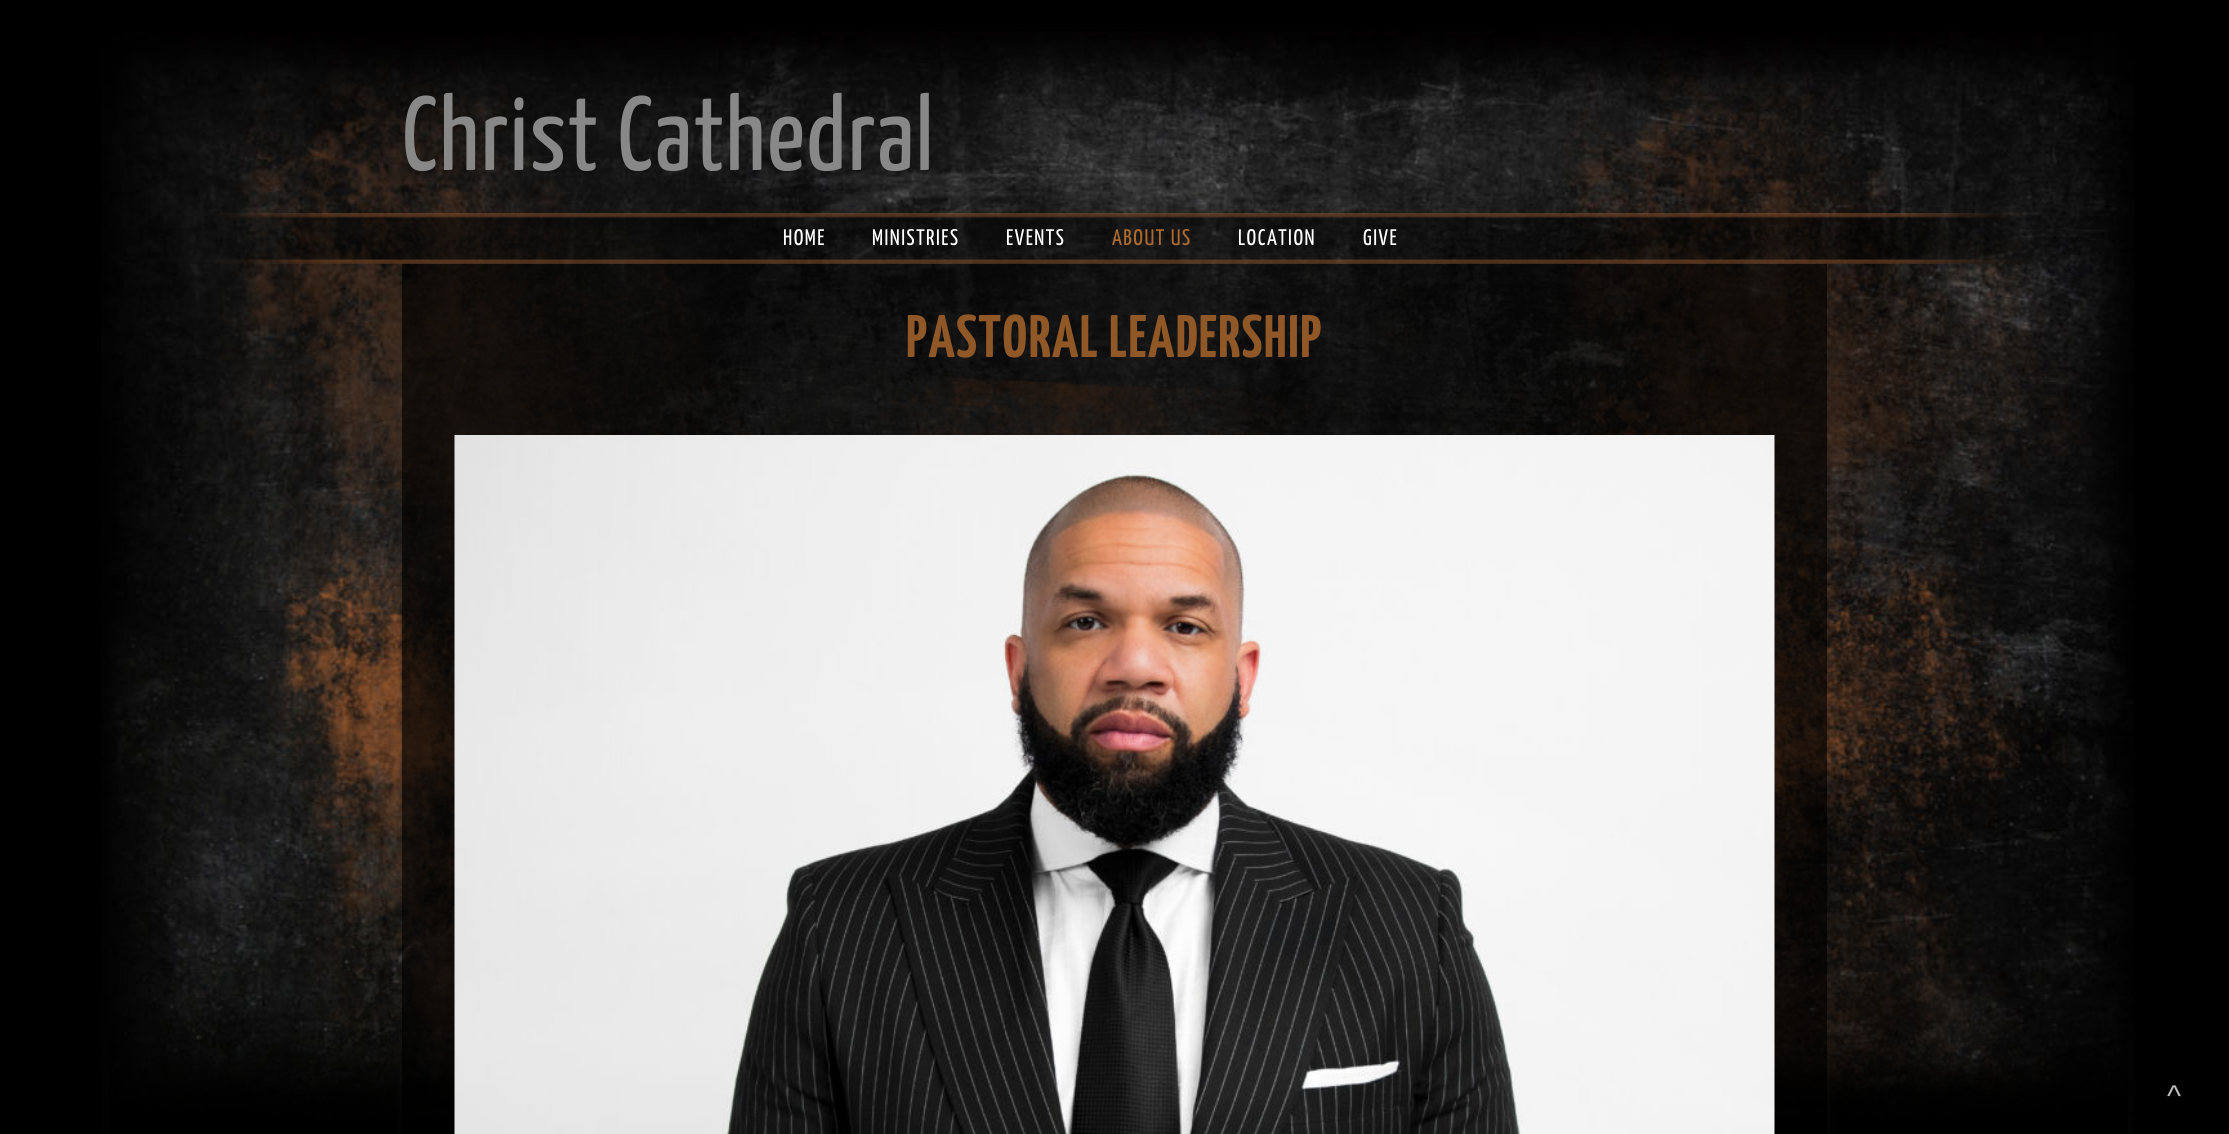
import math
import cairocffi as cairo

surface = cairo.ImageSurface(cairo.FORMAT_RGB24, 2229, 1134)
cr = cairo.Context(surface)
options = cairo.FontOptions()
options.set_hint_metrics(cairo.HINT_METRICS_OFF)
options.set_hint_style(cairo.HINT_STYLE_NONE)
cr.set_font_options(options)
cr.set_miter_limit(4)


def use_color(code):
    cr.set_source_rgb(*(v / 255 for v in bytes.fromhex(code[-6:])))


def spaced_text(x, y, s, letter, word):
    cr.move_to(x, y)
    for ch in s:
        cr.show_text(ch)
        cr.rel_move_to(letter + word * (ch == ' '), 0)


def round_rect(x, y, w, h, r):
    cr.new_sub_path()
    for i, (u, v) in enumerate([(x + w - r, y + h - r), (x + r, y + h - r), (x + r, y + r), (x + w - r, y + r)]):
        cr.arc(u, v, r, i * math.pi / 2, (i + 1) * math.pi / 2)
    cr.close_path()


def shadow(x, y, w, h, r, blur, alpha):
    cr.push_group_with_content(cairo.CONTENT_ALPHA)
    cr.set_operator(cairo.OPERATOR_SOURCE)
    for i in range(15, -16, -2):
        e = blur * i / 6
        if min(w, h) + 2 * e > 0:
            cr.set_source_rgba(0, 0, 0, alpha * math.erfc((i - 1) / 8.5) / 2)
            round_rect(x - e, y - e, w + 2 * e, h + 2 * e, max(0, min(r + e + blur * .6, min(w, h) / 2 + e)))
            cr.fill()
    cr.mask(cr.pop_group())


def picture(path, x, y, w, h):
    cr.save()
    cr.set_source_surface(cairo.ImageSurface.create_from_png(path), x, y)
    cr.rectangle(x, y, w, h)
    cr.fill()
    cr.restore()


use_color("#000000")
cr.paint()
picture("img1.png", 101, 31, 2033, 1103)
picture("img2.png", 108, 997, 2020, 137)
cr.save()
cr.set_fill_rule(cairo.FILL_RULE_EVEN_ODD)
cr.new_path()
cr.move_to(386, 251)
cr.line_to(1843, 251)
cr.line_to(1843, 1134)
cr.line_to(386, 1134)
cr.close_path()
cr.move_to(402, 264)
cr.line_to(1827, 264)
cr.line_to(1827, 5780)
cr.line_to(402, 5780)
cr.close_path()
cr.clip()
use_color("#1e1e1e")
shadow(402, 267, 1425, 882, 0, 5, 0.28)
cr.restore()
picture("img3.png", 212, 213, 1829, 51)
cr.select_font_face("Yanone Kaffeesatz")
cr.set_font_size(105)
use_color("#888888")
spaced_text(402, 170, "Christ Cathedral", 1.5, 0)
cr.set_font_size(22.5)
use_color("#ffffff")
spaced_text(783, 245, "HOME", 1.5, 0)
spaced_text(872, 245, "MINISTRIES", 1.5, 0)
spaced_text(1006, 245, "EVENTS", 1.5, 0)
use_color("#ae6a2f")
spaced_text(1112, 245, "ABOUT US", 1.5, 0)
use_color("#ffffff")
spaced_text(1238, 245, "LOCATION", 1.5, 0)
spaced_text(1363, 245, "GIVE", 1.5, 0)
cr.set_source_rgba(0, 0, 0, 0.65)
cr.rectangle(402, 264, 1425, 845)
cr.fill()
cr.select_font_face("Yanone Kaffeesatz", cairo.FONT_SLANT_NORMAL, cairo.FONT_WEIGHT_BOLD)
cr.set_font_size(60)
use_color("#905727")
spaced_text(906, 357, "PASTORAL LEADERSHIP", 1.5, 0)
picture("img4.png", 454, 435, 1321, 699)
cr.select_font_face("Liberation Sans")
cr.set_font_size(30)
use_color("#bbbbbb")
spaced_text(2167, 1106, "^", 1.5, 0)
surface.write_to_png("result.png")
